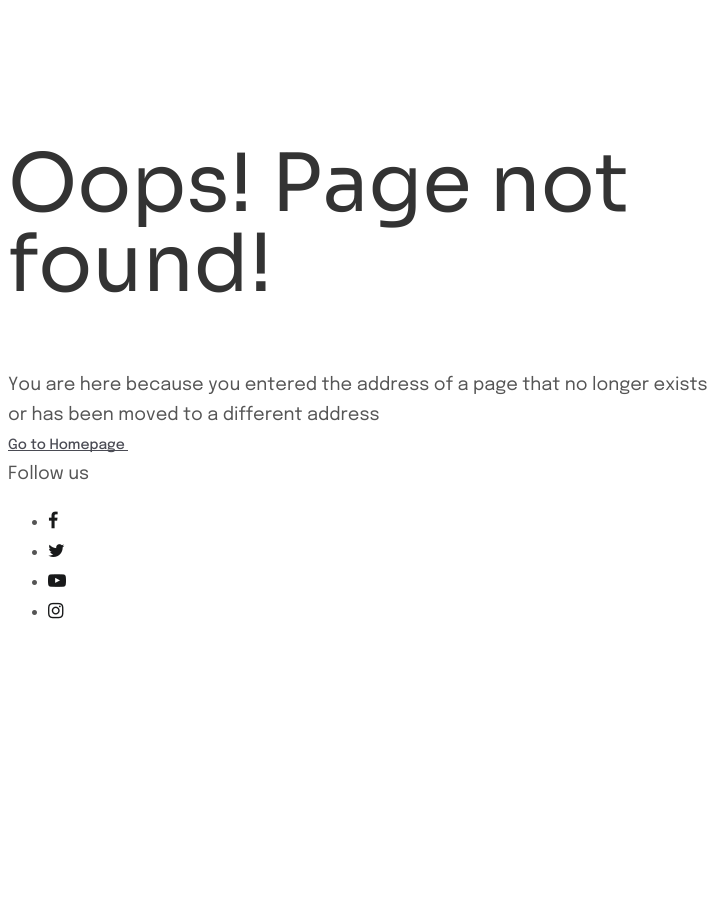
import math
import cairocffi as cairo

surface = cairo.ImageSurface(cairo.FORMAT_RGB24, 720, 920)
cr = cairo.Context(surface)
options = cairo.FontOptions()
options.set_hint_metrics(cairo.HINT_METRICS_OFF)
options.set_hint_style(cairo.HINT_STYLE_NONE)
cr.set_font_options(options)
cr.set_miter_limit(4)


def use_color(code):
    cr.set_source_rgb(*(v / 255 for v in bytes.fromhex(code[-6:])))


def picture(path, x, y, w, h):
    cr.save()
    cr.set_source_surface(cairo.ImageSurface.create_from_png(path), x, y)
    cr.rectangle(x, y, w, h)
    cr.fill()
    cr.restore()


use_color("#ffffff")
cr.paint()
cr.select_font_face("Sora")
cr.set_font_size(80)
use_color("#333333")
cr.move_to(8, 211)
cr.show_text("Oops! Page not")
cr.move_to(8, 291)
cr.show_text("found!")
cr.select_font_face("Epilogue")
cr.set_font_size(18)
use_color("#555555")
cr.move_to(8, 390)
cr.show_text("You are here because you entered the address of a page that no longer exists")
cr.move_to(8, 420)
cr.show_text("or has been moved to a different address")
use_color("#4a4b54")
cr.rectangle(8, 450, 120, 1)
cr.fill()
cr.select_font_face("Epilogue Medium")
cr.set_font_size(14)
cr.move_to(8, 449)
cr.show_text("Go to Homepage")
cr.select_font_face("Epilogue")
cr.set_font_size(18)
use_color("#555555")
cr.move_to(8, 479)
cr.show_text("Follow us")
cr.new_path()
cr.arc(34.5, 522.5, 2.5, 0, 2 * math.pi)
cr.fill()
picture("img1.png", 48, 511, 10, 18)
cr.arc(34.5, 552.5, 2.5, 0, 2 * math.pi)
cr.fill()
picture("img2.png", 48, 544, 17, 13)
cr.arc(34.5, 582.5, 2.5, 0, 2 * math.pi)
cr.fill()
picture("img3.png", 48, 574, 18, 13)
cr.arc(34.5, 612.5, 2.5, 0, 2 * math.pi)
cr.fill()
picture("img4.png", 48, 602, 16, 17)
surface.write_to_png("result.png")
